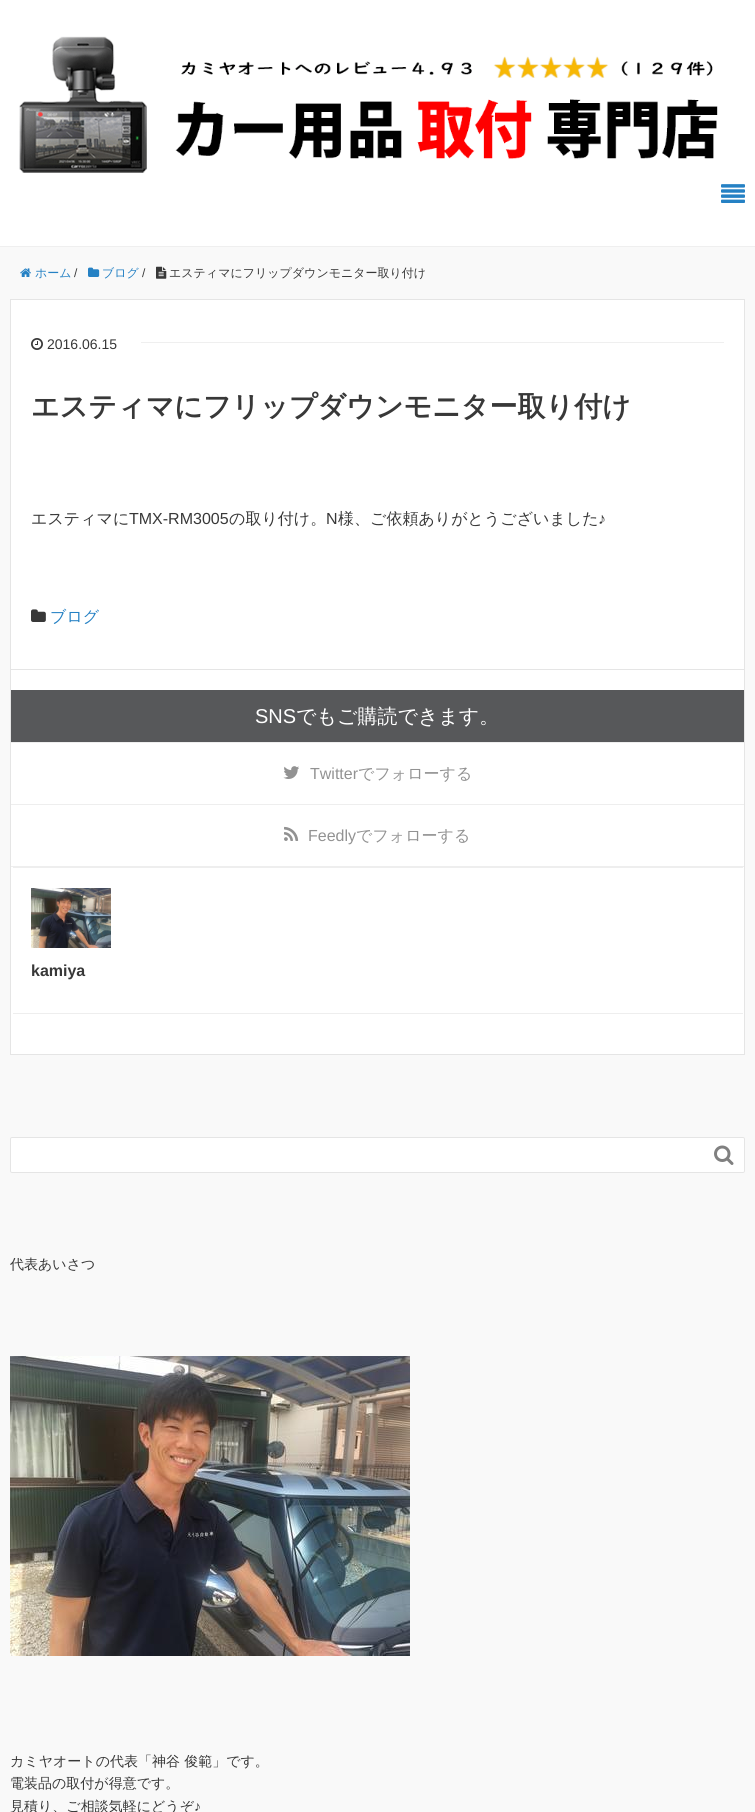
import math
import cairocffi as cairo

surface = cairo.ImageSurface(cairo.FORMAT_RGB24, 755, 1812)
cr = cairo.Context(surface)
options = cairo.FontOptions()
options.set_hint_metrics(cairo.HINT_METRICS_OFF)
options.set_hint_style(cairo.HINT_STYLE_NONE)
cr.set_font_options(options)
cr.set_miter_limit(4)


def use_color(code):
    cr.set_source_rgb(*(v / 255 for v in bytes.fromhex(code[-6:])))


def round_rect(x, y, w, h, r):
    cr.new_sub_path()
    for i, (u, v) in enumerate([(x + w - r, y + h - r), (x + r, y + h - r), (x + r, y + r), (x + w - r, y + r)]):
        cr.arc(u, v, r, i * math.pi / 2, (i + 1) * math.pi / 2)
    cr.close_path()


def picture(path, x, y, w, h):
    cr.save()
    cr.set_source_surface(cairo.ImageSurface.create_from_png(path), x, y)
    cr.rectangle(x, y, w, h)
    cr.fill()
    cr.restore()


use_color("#f9f9f9")
cr.paint()
use_color("#ffffff")
cr.rectangle(0, 0, 755, 246)
cr.fill()
use_color("#efefef")
cr.rectangle(0, 246, 755, 1)
cr.fill()
picture("img1.png", 19, 36, 699, 137)
picture("img2.png", 721, 184, 24, 19)
picture("img3.png", 20, 268, 11, 9)
cr.select_font_face("WenQuanYi Zen Hei Medium")
cr.set_font_size(12)
use_color("#2581c4")
cr.move_to(35, 277)
cr.show_text("ホーム")
cr.select_font_face("Liberation Sans")
use_color("#383838")
cr.move_to(74, 277)
cr.show_text("/")
picture("img4.png", 88, 267, 12, 10)
cr.select_font_face("WenQuanYi Zen Hei Medium")
use_color("#2581c4")
cr.move_to(102, 277)
cr.show_text("ブログ")
cr.select_font_face("Liberation Sans")
use_color("#383838")
cr.move_to(142, 277)
cr.show_text("/")
picture("img5.png", 156, 266, 11, 13)
cr.select_font_face("WenQuanYi Zen Hei Medium")
cr.move_to(169, 277)
cr.show_text("エスティマにフリップダウンモニター取り付け")
use_color("#ffffff")
cr.rectangle(10.5, 299.5, 734, 755)
cr.fill_preserve()
use_color("#e5e5e5")
cr.set_line_width(1)
cr.stroke()
use_color("#efefef")
cr.rectangle(141, 342, 583, 1)
cr.fill()
picture("img6.png", 31, 338, 12, 12)
cr.select_font_face("Liberation Sans")
cr.set_font_size(14)
use_color("#383838")
cr.move_to(47, 349)
cr.show_text("2016.06.15")
cr.select_font_face("WenQuanYi Zen Hei", cairo.FONT_SLANT_NORMAL, cairo.FONT_WEIGHT_BOLD)
cr.set_font_size(28)
cr.move_to(31, 416)
cr.show_text("エスティマにフリップダウンモニター取り付け")
cr.select_font_face("WenQuanYi Zen Hei Medium")
cr.set_font_size(16)
cr.move_to(31, 524)
cr.show_text("エスティマに")
cr.select_font_face("Liberation Sans")
cr.move_to(129, 524)
cr.show_text("TMX-RM3005")
cr.select_font_face("WenQuanYi Zen Hei Medium")
cr.move_to(229, 524)
cr.show_text("の取り付け。")
cr.select_font_face("Liberation Sans")
cr.move_to(326, 524)
cr.show_text("N")
cr.select_font_face("WenQuanYi Zen Hei Medium")
cr.move_to(338, 524)
cr.show_text("様、ご依頼ありがとうございました")
cr.select_font_face("Liberation Sans")
cr.move_to(598, 524)
cr.show_text("♪")
picture("img7.png", 31, 609, 15, 13)
cr.select_font_face("WenQuanYi Zen Hei Medium")
use_color("#2581c4")
cr.move_to(50, 622)
cr.show_text("ブログ")
use_color("#e5e5e5")
cr.rectangle(11, 669, 733, 1)
cr.fill()
use_color("#57585a")
cr.rectangle(11, 690, 733, 52)
cr.fill()
cr.select_font_face("Liberation Sans")
cr.set_font_size(20)
use_color("#ffffff")
cr.move_to(255, 723)
cr.show_text("SNS")
cr.select_font_face("WenQuanYi Zen Hei Medium")
cr.move_to(296, 723)
cr.show_text("でもご購読できます。")
use_color("#eeeeee")
cr.rectangle(11, 742, 733, 1)
cr.fill()
cr.rectangle(11, 804, 733, 1)
cr.fill()
picture("img8.png", 283, 766, 16, 13)
cr.select_font_face("Liberation Sans")
cr.set_font_size(16)
use_color("#929292")
cr.move_to(310, 779)
cr.show_text("Twitter")
cr.select_font_face("WenQuanYi Zen Hei Medium")
cr.move_to(358, 779)
cr.show_text("でフォローする")
use_color("#eeeeee")
cr.rectangle(11, 866, 733, 1)
cr.fill()
picture("img9.png", 284, 826, 15, 15)
cr.select_font_face("Liberation Sans")
use_color("#929292")
cr.move_to(308, 841)
cr.show_text("Feedly")
cr.select_font_face("WenQuanYi Zen Hei Medium")
cr.move_to(356, 841)
cr.show_text("でフォローする")
use_color("#eeeeee")
cr.rectangle(13, 867, 730, 1)
cr.fill()
cr.rectangle(13, 1013, 730, 1)
cr.fill()
picture("img10.png", 31, 888, 80, 60)
cr.select_font_face("Liberation Sans", cairo.FONT_SLANT_NORMAL, cairo.FONT_WEIGHT_BOLD)
use_color("#383838")
cr.move_to(31, 976)
cr.show_text("kamiya")
use_color("#ffffff")
round_rect(10.5, 1137.5, 734, 35, 1.5)
cr.fill_preserve()
use_color("#e5e5e5")
cr.stroke()
picture("img11.png", 714, 1145, 20, 20)
cr.select_font_face("WenQuanYi Zen Hei Medium")
cr.set_font_size(14)
use_color("#383838")
cr.move_to(10, 1269)
cr.show_text("代表あいさつ")
picture("img12.png", 10, 1356, 400, 300)
cr.move_to(10, 1766)
cr.show_text("カミヤオートの代表「神谷 俊範」です。")
cr.move_to(10, 1788)
cr.show_text("電装品の取付が得意です。")
cr.move_to(10, 1811)
cr.show_text("見積り、ご相談気軽にどうぞ")
cr.select_font_face("Liberation Sans")
cr.move_to(194, 1811)
cr.show_text("♪")
surface.write_to_png("result.png")
